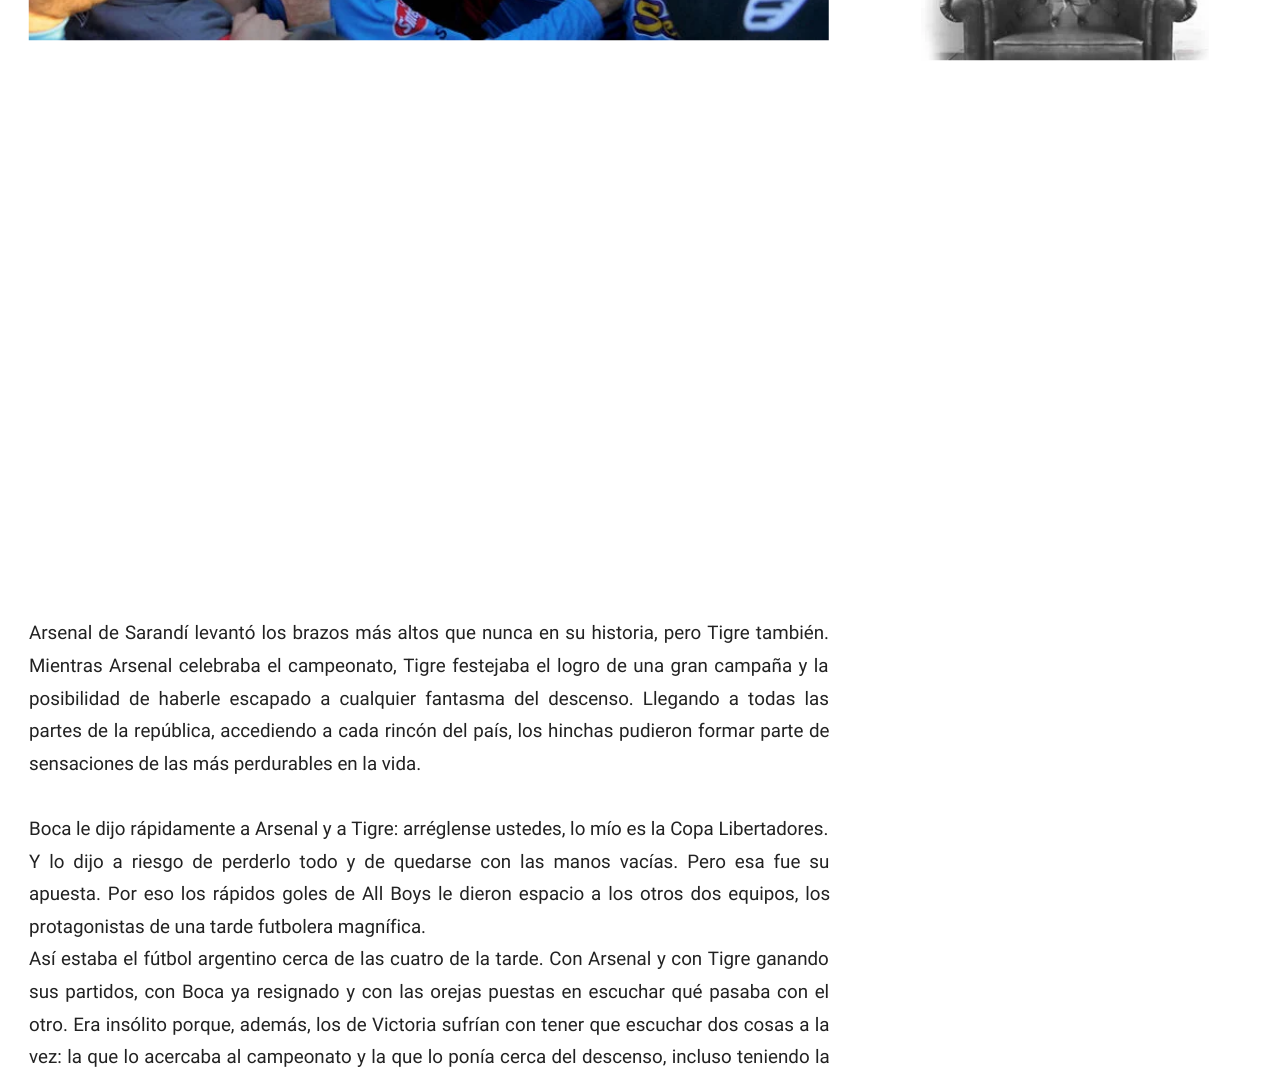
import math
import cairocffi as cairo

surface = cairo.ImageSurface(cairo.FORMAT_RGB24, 1282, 1088)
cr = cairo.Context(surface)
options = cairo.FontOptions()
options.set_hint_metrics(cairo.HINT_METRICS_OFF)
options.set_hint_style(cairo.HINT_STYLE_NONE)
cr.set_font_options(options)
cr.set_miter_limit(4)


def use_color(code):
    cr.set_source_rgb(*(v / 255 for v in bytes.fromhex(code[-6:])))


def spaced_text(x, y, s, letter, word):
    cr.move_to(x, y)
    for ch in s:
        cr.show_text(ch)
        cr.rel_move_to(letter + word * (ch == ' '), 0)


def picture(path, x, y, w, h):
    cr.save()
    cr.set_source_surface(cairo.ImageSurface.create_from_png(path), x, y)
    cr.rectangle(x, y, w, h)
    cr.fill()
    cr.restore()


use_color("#ffffff")
cr.paint()
picture("img1.png", 921, 0, 288, 61)
picture("img2.png", 28, 0, 801, 41)
cr.select_font_face("Roboto")
cr.set_font_size(18.75)
use_color("#222222")
spaced_text(29, 639, "Arsenal de Sarandí levantó los brazos más altos que nunca en su historia, pero Tigre también.", 0, 1.4)
spaced_text(29, 672, "Mientras Arsenal celebraba el campeonato, Tigre festejaba el logro de una gran campaña y la", 0, 1.75)
spaced_text(29, 705, "posibilidad de haberle escapado a cualquier fantasma del descenso. Llegando a todas las", 0, 4.4)
spaced_text(29, 737, "partes de la república, accediendo a cada rincón del país, los hinchas pudieron formar parte de", 0, 1)
cr.move_to(29, 770)
cr.show_text("sensaciones de las más perdurables en la vida.")
cr.move_to(29, 835)
cr.show_text("Boca le dijo rápidamente a Arsenal y a Tigre: arréglense ustedes, lo mío es la Copa Libertadores.")
spaced_text(29, 868, "Y lo dijo a riesgo de perderlo todo y de quedarse con las manos vacías. Pero esa fue su", 0, 4.25)
spaced_text(29, 900, "apuesta. Por eso los rápidos goles de All Boys le dieron espacio a los otros dos equipos, los", 0, 2.25)
cr.move_to(29, 933)
cr.show_text("protagonistas de una tarde futbolera magnífica.")
spaced_text(29, 965, "Así estaba el fútbol argentino cerca de las cuatro de la tarde. Con Arsenal y con Tigre ganando", 0, 0.9)
spaced_text(29, 998, "sus partidos, con Boca ya resignado y con las orejas puestas en escuchar qué pasaba con el", 0, 2)
spaced_text(29, 1031, "otro. Era insólito porque, además, los de Victoria sufrían con tener que escuchar dos cosas a la", 0, 0.7)
spaced_text(29, 1063, "vez: la que lo acercaba al campeonato y la que lo ponía cerca del descenso, incluso teniendo la", 0, 0.7)
surface.write_to_png("result.png")
